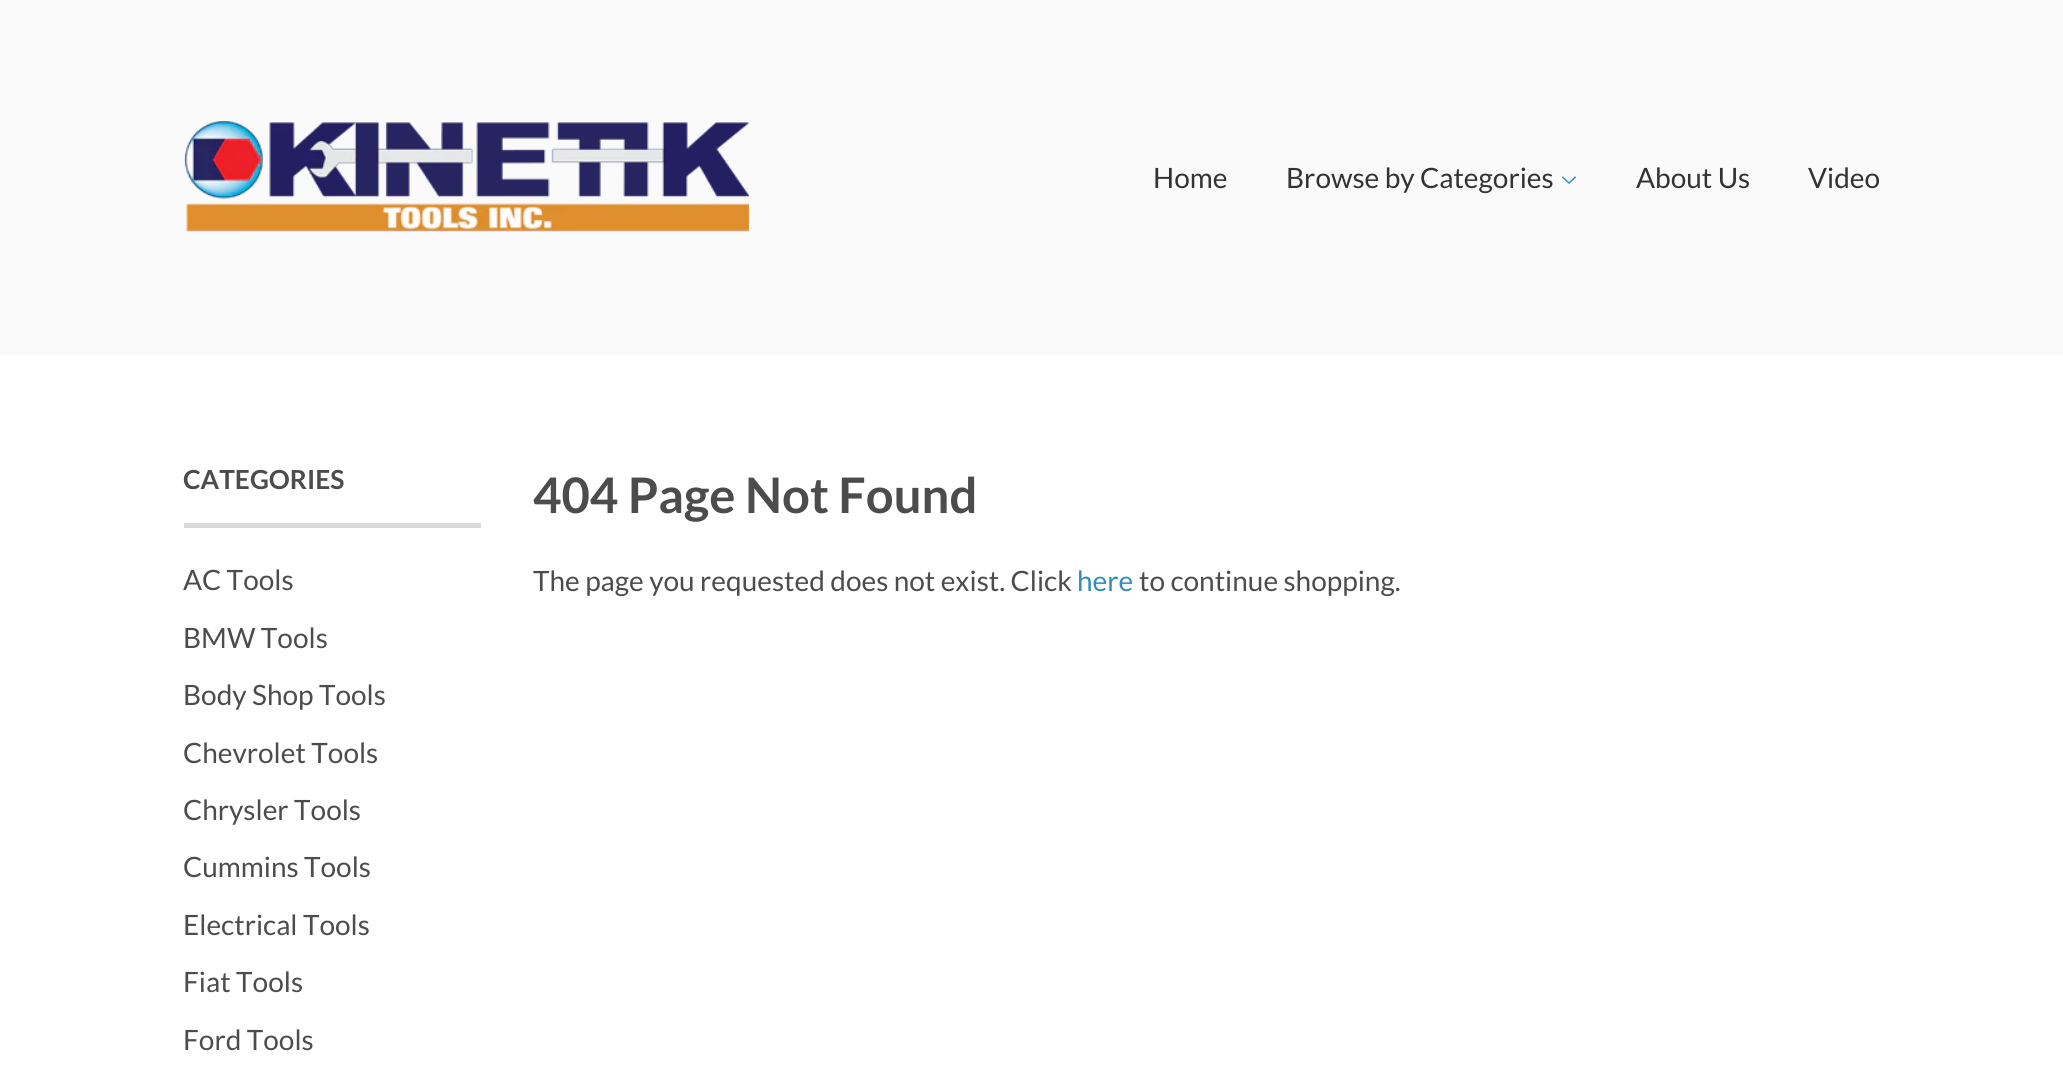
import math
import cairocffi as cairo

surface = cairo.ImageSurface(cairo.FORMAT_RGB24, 2063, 1072)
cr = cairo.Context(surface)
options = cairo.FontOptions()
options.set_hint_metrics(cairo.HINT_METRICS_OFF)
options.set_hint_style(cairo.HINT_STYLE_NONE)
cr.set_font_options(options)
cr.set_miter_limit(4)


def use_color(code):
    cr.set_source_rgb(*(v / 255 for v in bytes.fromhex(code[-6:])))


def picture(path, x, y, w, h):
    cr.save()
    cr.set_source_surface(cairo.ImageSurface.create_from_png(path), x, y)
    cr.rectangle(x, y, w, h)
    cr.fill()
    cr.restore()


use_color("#ffffff")
cr.paint()
use_color("#fafafa")
cr.rectangle(0, 0, 2063, 355)
cr.fill()
picture("img1.png", 184, 121, 565, 111)
cr.select_font_face("Lato")
cr.set_font_size(28)
use_color("#333333")
cr.move_to(1153, 188)
cr.show_text("Home")
cr.move_to(1286, 188)
cr.show_text("Browse by Categories")
picture("img2.png", 1562, 176, 14, 8)
cr.move_to(1636, 188)
cr.show_text("About Us")
cr.move_to(1808, 188)
cr.show_text("Video")
use_color("#dbd8d8")
cr.rectangle(184, 523, 297, 5)
cr.fill()
cr.select_font_face("Lato", cairo.FONT_SLANT_NORMAL, cairo.FONT_WEIGHT_BOLD)
cr.set_font_size(26.25)
use_color("#4c4c4c")
cr.move_to(183, 489)
cr.show_text("CATEGORIES")
cr.select_font_face("Lato")
cr.set_font_size(28)
cr.move_to(183, 590)
cr.show_text("AC Tools")
cr.move_to(183, 648)
cr.show_text("BMW Tools")
cr.move_to(183, 705)
cr.show_text("Body Shop Tools")
cr.move_to(183, 763)
cr.show_text("Chevrolet Tools")
cr.move_to(183, 820)
cr.show_text("Chrysler Tools")
cr.move_to(183, 877)
cr.show_text("Cummins Tools")
cr.move_to(183, 935)
cr.show_text("Electrical Tools")
cr.move_to(183, 992)
cr.show_text("Fiat Tools")
cr.move_to(183, 1050)
cr.show_text("Ford Tools")
cr.select_font_face("Lato", cairo.FONT_SLANT_NORMAL, cairo.FONT_WEIGHT_BOLD)
cr.set_font_size(49)
cr.move_to(533, 513)
cr.show_text("404 Page Not Found")
cr.select_font_face("Lato")
cr.set_font_size(28)
cr.move_to(533, 591)
cr.show_text("The page you requested does not exist. Click")
use_color("#338dbc")
cr.move_to(1077, 591)
cr.show_text("here")
use_color("#4c4c4c")
cr.move_to(1139, 591)
cr.show_text("to continue shopping.")
surface.write_to_png("result.png")
